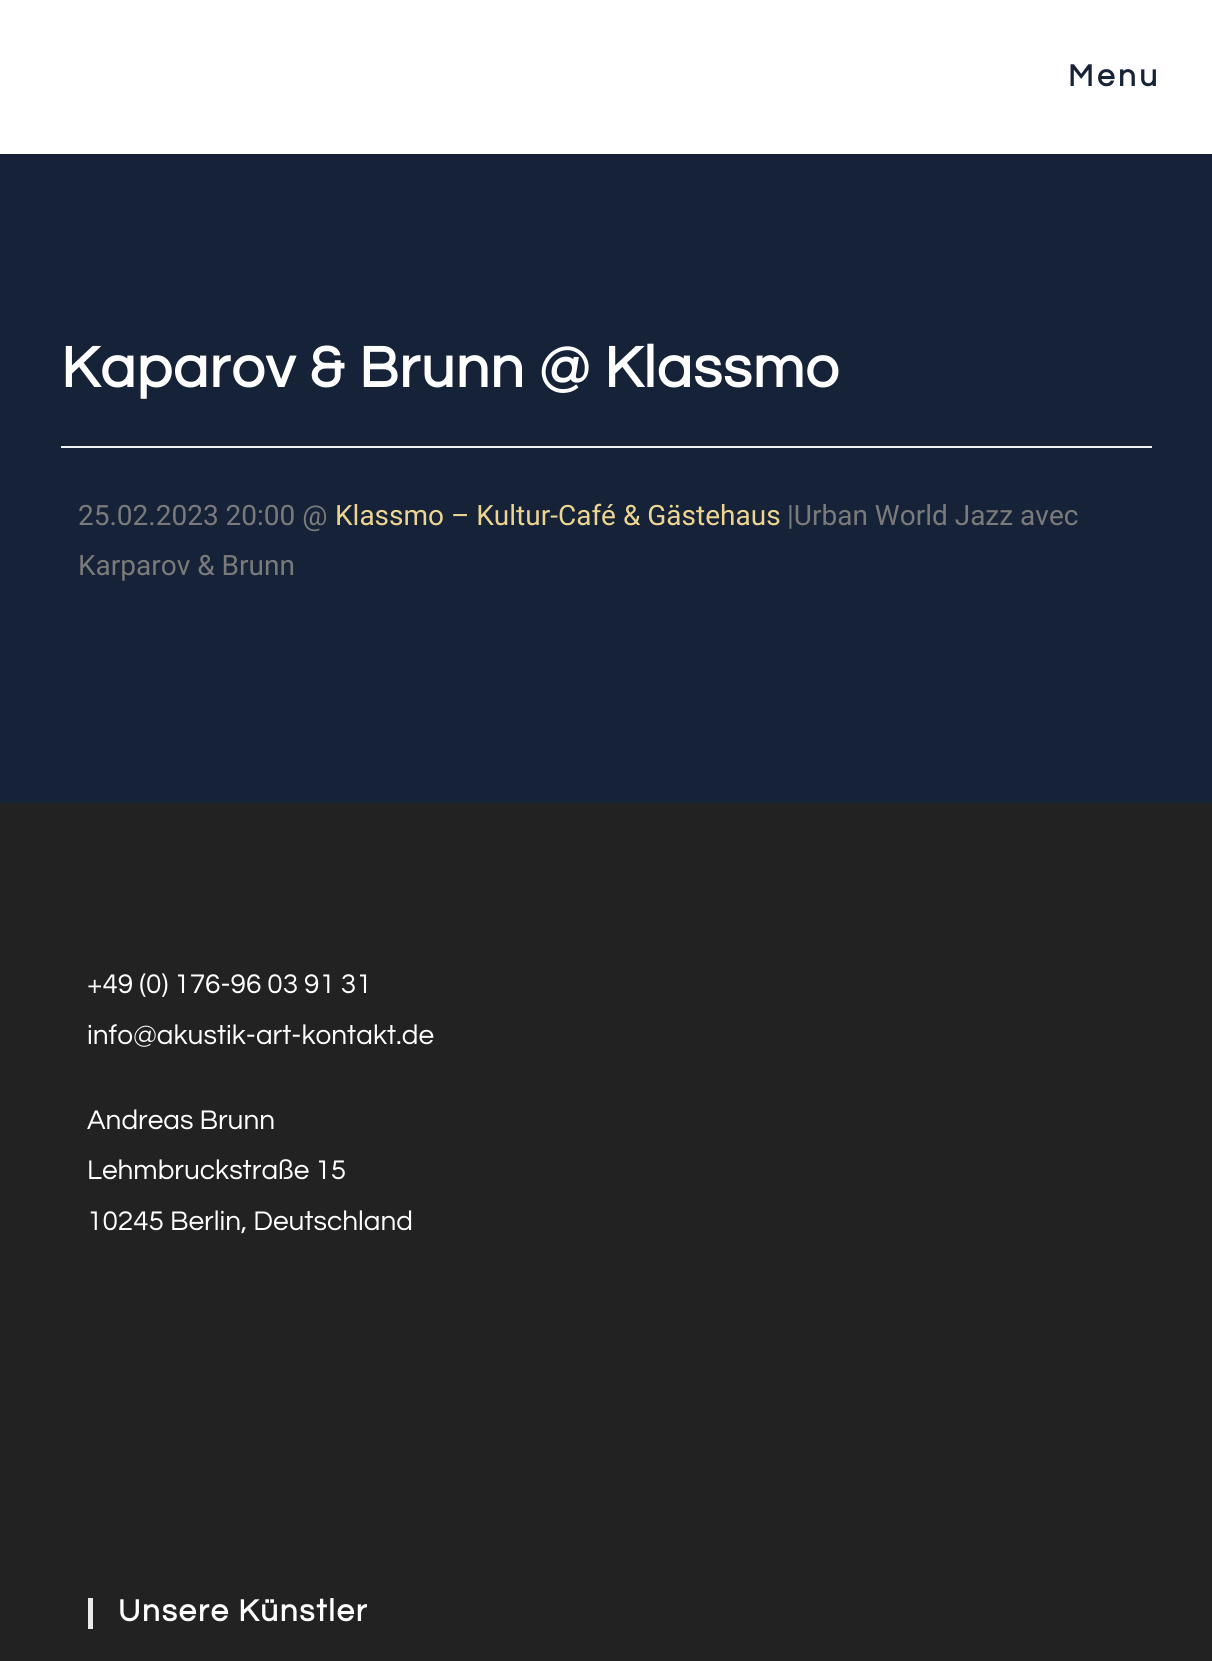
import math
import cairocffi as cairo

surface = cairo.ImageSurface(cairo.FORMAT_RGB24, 1212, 1661)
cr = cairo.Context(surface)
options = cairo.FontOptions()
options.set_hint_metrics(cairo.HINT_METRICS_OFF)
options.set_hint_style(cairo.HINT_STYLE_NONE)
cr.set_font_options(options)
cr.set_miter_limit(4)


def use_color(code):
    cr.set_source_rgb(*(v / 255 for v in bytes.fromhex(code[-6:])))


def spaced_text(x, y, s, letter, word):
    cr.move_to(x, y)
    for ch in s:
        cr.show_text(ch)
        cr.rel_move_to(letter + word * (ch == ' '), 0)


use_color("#152238")
cr.paint()
use_color("#ffffff")
cr.rectangle(0, 0, 1212, 154)
cr.fill()
cr.select_font_face("Questrial", cairo.FONT_SLANT_NORMAL, cairo.FONT_WEIGHT_BOLD)
cr.set_font_size(31.5)
use_color("#152238")
spaced_text(1068, 86, "Menu", 3.5, 0)
use_color("#f1f1f1")
cr.rectangle(61, 446, 1091, 2)
cr.fill()
cr.set_font_size(59.5)
use_color("#ffffff")
spaced_text(61, 387, "Kaparov & Brunn @ Klassmo", 1.05, 0)
cr.select_font_face("Roboto")
cr.set_font_size(28)
use_color("#7a7a7a")
cr.move_to(78, 525)
cr.show_text("25.02.2023 20:00 @")
use_color("#ecd590")
cr.move_to(335, 525)
cr.show_text("Klassmo – Kultur-Café & Gästehaus")
use_color("#7a7a7a")
cr.move_to(787, 525)
cr.show_text("|Urban World Jazz avec")
cr.move_to(78, 575)
cr.show_text("Karparov & Brunn")
use_color("#222222")
cr.rectangle(0, 803, 1212, 858)
cr.fill()
cr.select_font_face("Questrial")
use_color("#ffffff")
cr.move_to(87, 993)
cr.show_text("+49 (0) 176-96 03 91 31")
cr.move_to(87, 1044)
cr.show_text("info@akustik-art-kontakt.de")
cr.move_to(87, 1129)
cr.show_text("Andreas Brunn")
cr.move_to(87, 1179)
cr.show_text("Lehmbruckstraße 15")
cr.move_to(87, 1230)
cr.show_text("10245 Berlin, Deutschland")
use_color("#eaeaea")
cr.rectangle(88, 1598, 5, 31)
cr.fill()
cr.select_font_face("Questrial", cairo.FONT_SLANT_NORMAL, cairo.FONT_WEIGHT_BOLD)
cr.set_font_size(31.5)
use_color("#ffffff")
spaced_text(118, 1621, "Unsere Künstler", 1.75, 0)
surface.write_to_png("result.png")
